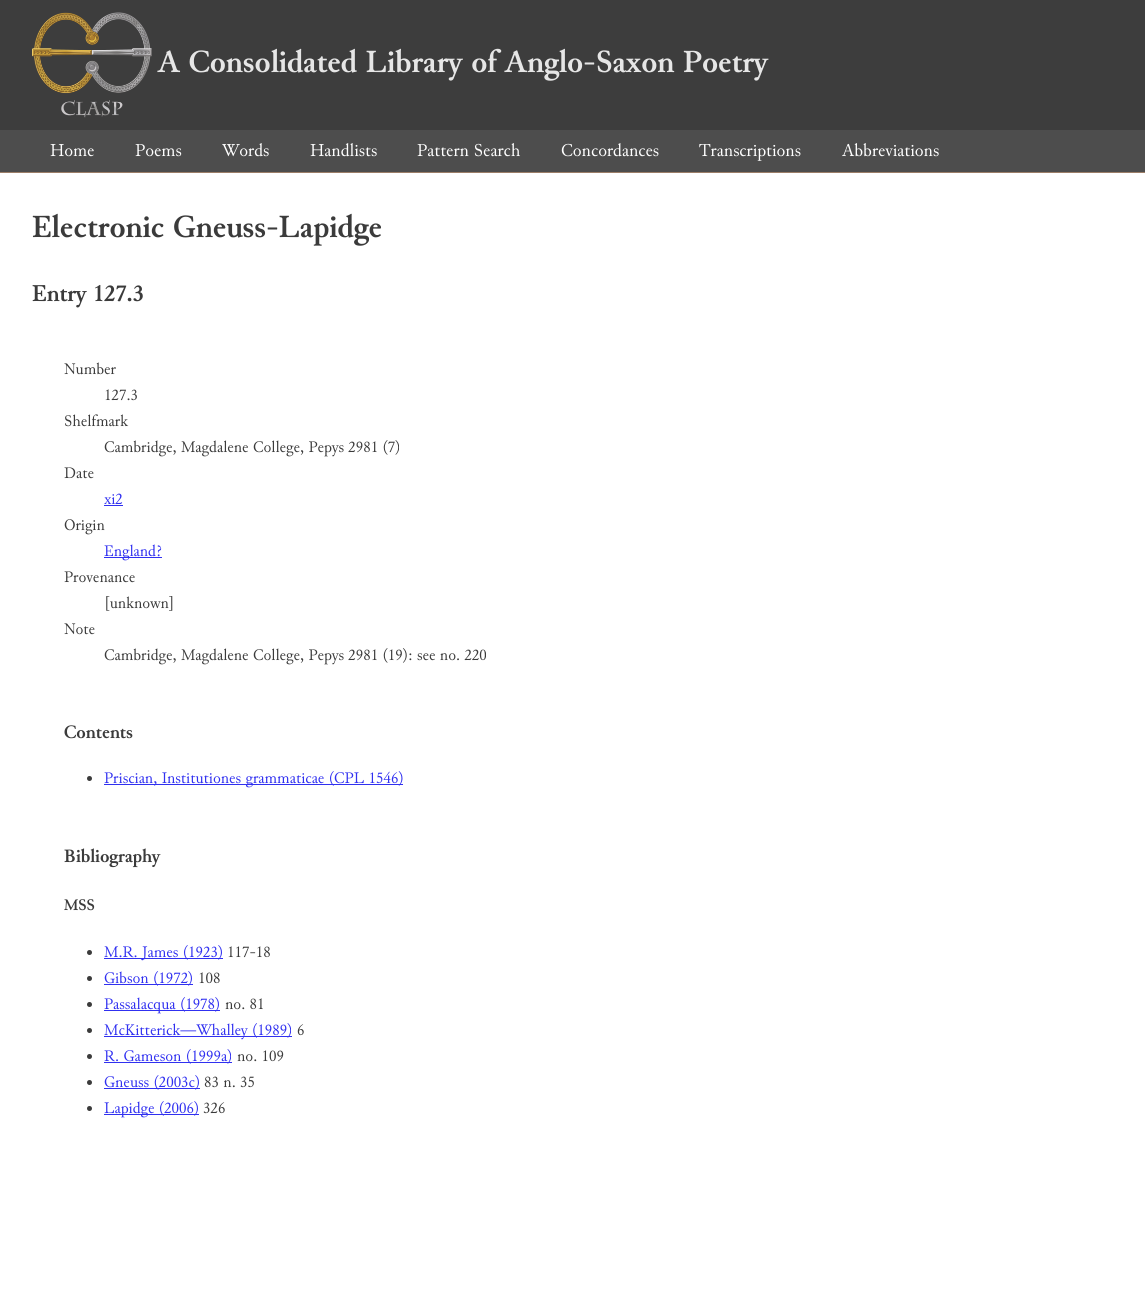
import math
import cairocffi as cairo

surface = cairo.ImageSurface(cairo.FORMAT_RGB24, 1145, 1289)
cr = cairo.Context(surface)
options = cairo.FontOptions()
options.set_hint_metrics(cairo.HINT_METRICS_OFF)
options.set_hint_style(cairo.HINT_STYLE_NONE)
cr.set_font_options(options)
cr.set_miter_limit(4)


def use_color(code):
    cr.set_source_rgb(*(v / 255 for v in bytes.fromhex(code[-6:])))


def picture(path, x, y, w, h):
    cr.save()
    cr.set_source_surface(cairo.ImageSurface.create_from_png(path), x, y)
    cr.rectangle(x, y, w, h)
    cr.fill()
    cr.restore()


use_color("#ffffff")
cr.paint()
use_color("#3d3d3d")
cr.rectangle(0, 0, 1145, 130)
cr.fill()
picture("img1.png", 32, 12, 120, 106)
cr.select_font_face("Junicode", cairo.FONT_SLANT_NORMAL, cairo.FONT_WEIGHT_BOLD)
cr.set_font_size(32)
use_color("#e6e6e6")
cr.move_to(158, 72)
cr.show_text("A Consolidated Library of Anglo-Saxon Poetry")
use_color("#4d4d4d")
cr.rectangle(0, 130, 1145, 42)
cr.fill()
use_color("#9c7e68")
cr.rectangle(0, 172, 1145, 1)
cr.fill()
cr.select_font_face("Junicode")
cr.set_font_size(18)
use_color("#ffffff")
cr.move_to(50, 156)
cr.show_text("Home")
cr.move_to(135, 156)
cr.show_text("Poems")
cr.move_to(222, 156)
cr.show_text("Words")
cr.move_to(310, 156)
cr.show_text("Handlists")
cr.move_to(417, 156)
cr.show_text("Pattern Search")
cr.move_to(561, 156)
cr.show_text("Concordances")
cr.move_to(699, 156)
cr.show_text("Transcriptions")
cr.move_to(842, 156)
cr.show_text("Abbreviations")
cr.select_font_face("Junicode", cairo.FONT_SLANT_NORMAL, cairo.FONT_WEIGHT_BOLD)
cr.set_font_size(32)
use_color("#3b3b3b")
cr.move_to(32, 237)
cr.show_text("Electronic Gneuss-Lapidge")
cr.set_font_size(24)
cr.move_to(32, 301)
cr.show_text("Entry 127.3")
cr.select_font_face("Junicode")
cr.set_font_size(16)
cr.move_to(64, 374)
cr.show_text("Number")
cr.move_to(104, 400)
cr.show_text("127.3")
cr.move_to(64, 426)
cr.show_text("Shelfmark")
cr.move_to(104, 452)
cr.show_text("Cambridge, Magdalene College, Pepys 2981 (7)")
cr.move_to(64, 478)
cr.show_text("Date")
use_color("#3030f0")
cr.move_to(104, 504)
cr.show_text("xi2")
cr.rectangle(104, 505, 19, 1)
cr.fill()
use_color("#3b3b3b")
cr.move_to(64, 530)
cr.show_text("Origin")
use_color("#3030f0")
cr.rectangle(104, 557, 58, 1)
cr.fill()
cr.move_to(104, 556)
cr.show_text("England?")
use_color("#3b3b3b")
cr.move_to(64, 582)
cr.show_text("Provenance")
cr.move_to(104, 608)
cr.show_text("[unknown]")
cr.move_to(64, 634)
cr.show_text("Note")
cr.move_to(104, 660)
cr.show_text("Cambridge, Magdalene College, Pepys 2981 (19): see no. 220")
cr.select_font_face("Junicode", cairo.FONT_SLANT_NORMAL, cairo.FONT_WEIGHT_BOLD)
cr.set_font_size(18.75)
cr.move_to(64, 738)
cr.show_text("Contents")
cr.new_path()
cr.arc(89.5, 778.5, 2.5, 0, 2 * math.pi)
cr.fill()
use_color("#3030f0")
cr.rectangle(104, 784, 299, 1)
cr.fill()
cr.select_font_face("Junicode")
cr.set_font_size(16)
cr.move_to(104, 783)
cr.show_text("Priscian, Institutiones grammaticae (CPL 1546)")
cr.select_font_face("Junicode", cairo.FONT_SLANT_NORMAL, cairo.FONT_WEIGHT_BOLD)
cr.set_font_size(18.75)
use_color("#3b3b3b")
cr.move_to(64, 862)
cr.show_text("Bibliography")
cr.set_font_size(16)
cr.move_to(64, 910)
cr.show_text("MSS")
cr.new_path()
cr.arc(89.5, 952.5, 2.5, 0, 2 * math.pi)
cr.fill()
use_color("#3030f0")
cr.rectangle(104, 958, 119, 1)
cr.fill()
cr.select_font_face("Junicode")
cr.move_to(104, 957)
cr.show_text("M.R. James (1923)")
use_color("#3b3b3b")
cr.move_to(227, 957)
cr.show_text("117-18")
cr.new_path()
cr.arc(89.5, 978.5, 2.5, 0, 2 * math.pi)
cr.fill()
use_color("#3030f0")
cr.rectangle(104, 984, 89, 1)
cr.fill()
cr.move_to(104, 983)
cr.show_text("Gibson (1972)")
use_color("#3b3b3b")
cr.move_to(198, 983)
cr.show_text("108")
cr.new_path()
cr.arc(89.5, 1004.5, 2.5, 0, 2 * math.pi)
cr.fill()
use_color("#3030f0")
cr.rectangle(104, 1010, 116, 1)
cr.fill()
cr.move_to(104, 1009)
cr.show_text("Passalacqua (1978)")
use_color("#3b3b3b")
cr.move_to(225, 1009)
cr.show_text("no. 81")
cr.new_path()
cr.arc(89.5, 1030.5, 2.5, 0, 2 * math.pi)
cr.fill()
use_color("#3030f0")
cr.rectangle(104, 1036, 188, 1)
cr.fill()
cr.move_to(104, 1035)
cr.show_text("McKitterick—Whalley (1989)")
use_color("#3b3b3b")
cr.move_to(297, 1035)
cr.show_text("6")
cr.new_path()
cr.arc(89.5, 1056.5, 2.5, 0, 2 * math.pi)
cr.fill()
use_color("#3030f0")
cr.rectangle(104, 1062, 128, 1)
cr.fill()
cr.move_to(104, 1061)
cr.show_text("R. Gameson (1999a)")
use_color("#3b3b3b")
cr.move_to(237, 1061)
cr.show_text("no. 109")
cr.new_path()
cr.arc(89.5, 1082.5, 2.5, 0, 2 * math.pi)
cr.fill()
use_color("#3030f0")
cr.rectangle(104, 1088, 96, 1)
cr.fill()
cr.move_to(104, 1087)
cr.show_text("Gneuss (2003c)")
use_color("#3b3b3b")
cr.move_to(204, 1087)
cr.show_text("83 n. 35")
cr.new_path()
cr.arc(89.5, 1108.5, 2.5, 0, 2 * math.pi)
cr.fill()
use_color("#3030f0")
cr.rectangle(104, 1114, 95, 1)
cr.fill()
cr.move_to(104, 1113)
cr.show_text("Lapidge (2006)")
use_color("#3b3b3b")
cr.move_to(203, 1113)
cr.show_text("326")
surface.write_to_png("result.png")
